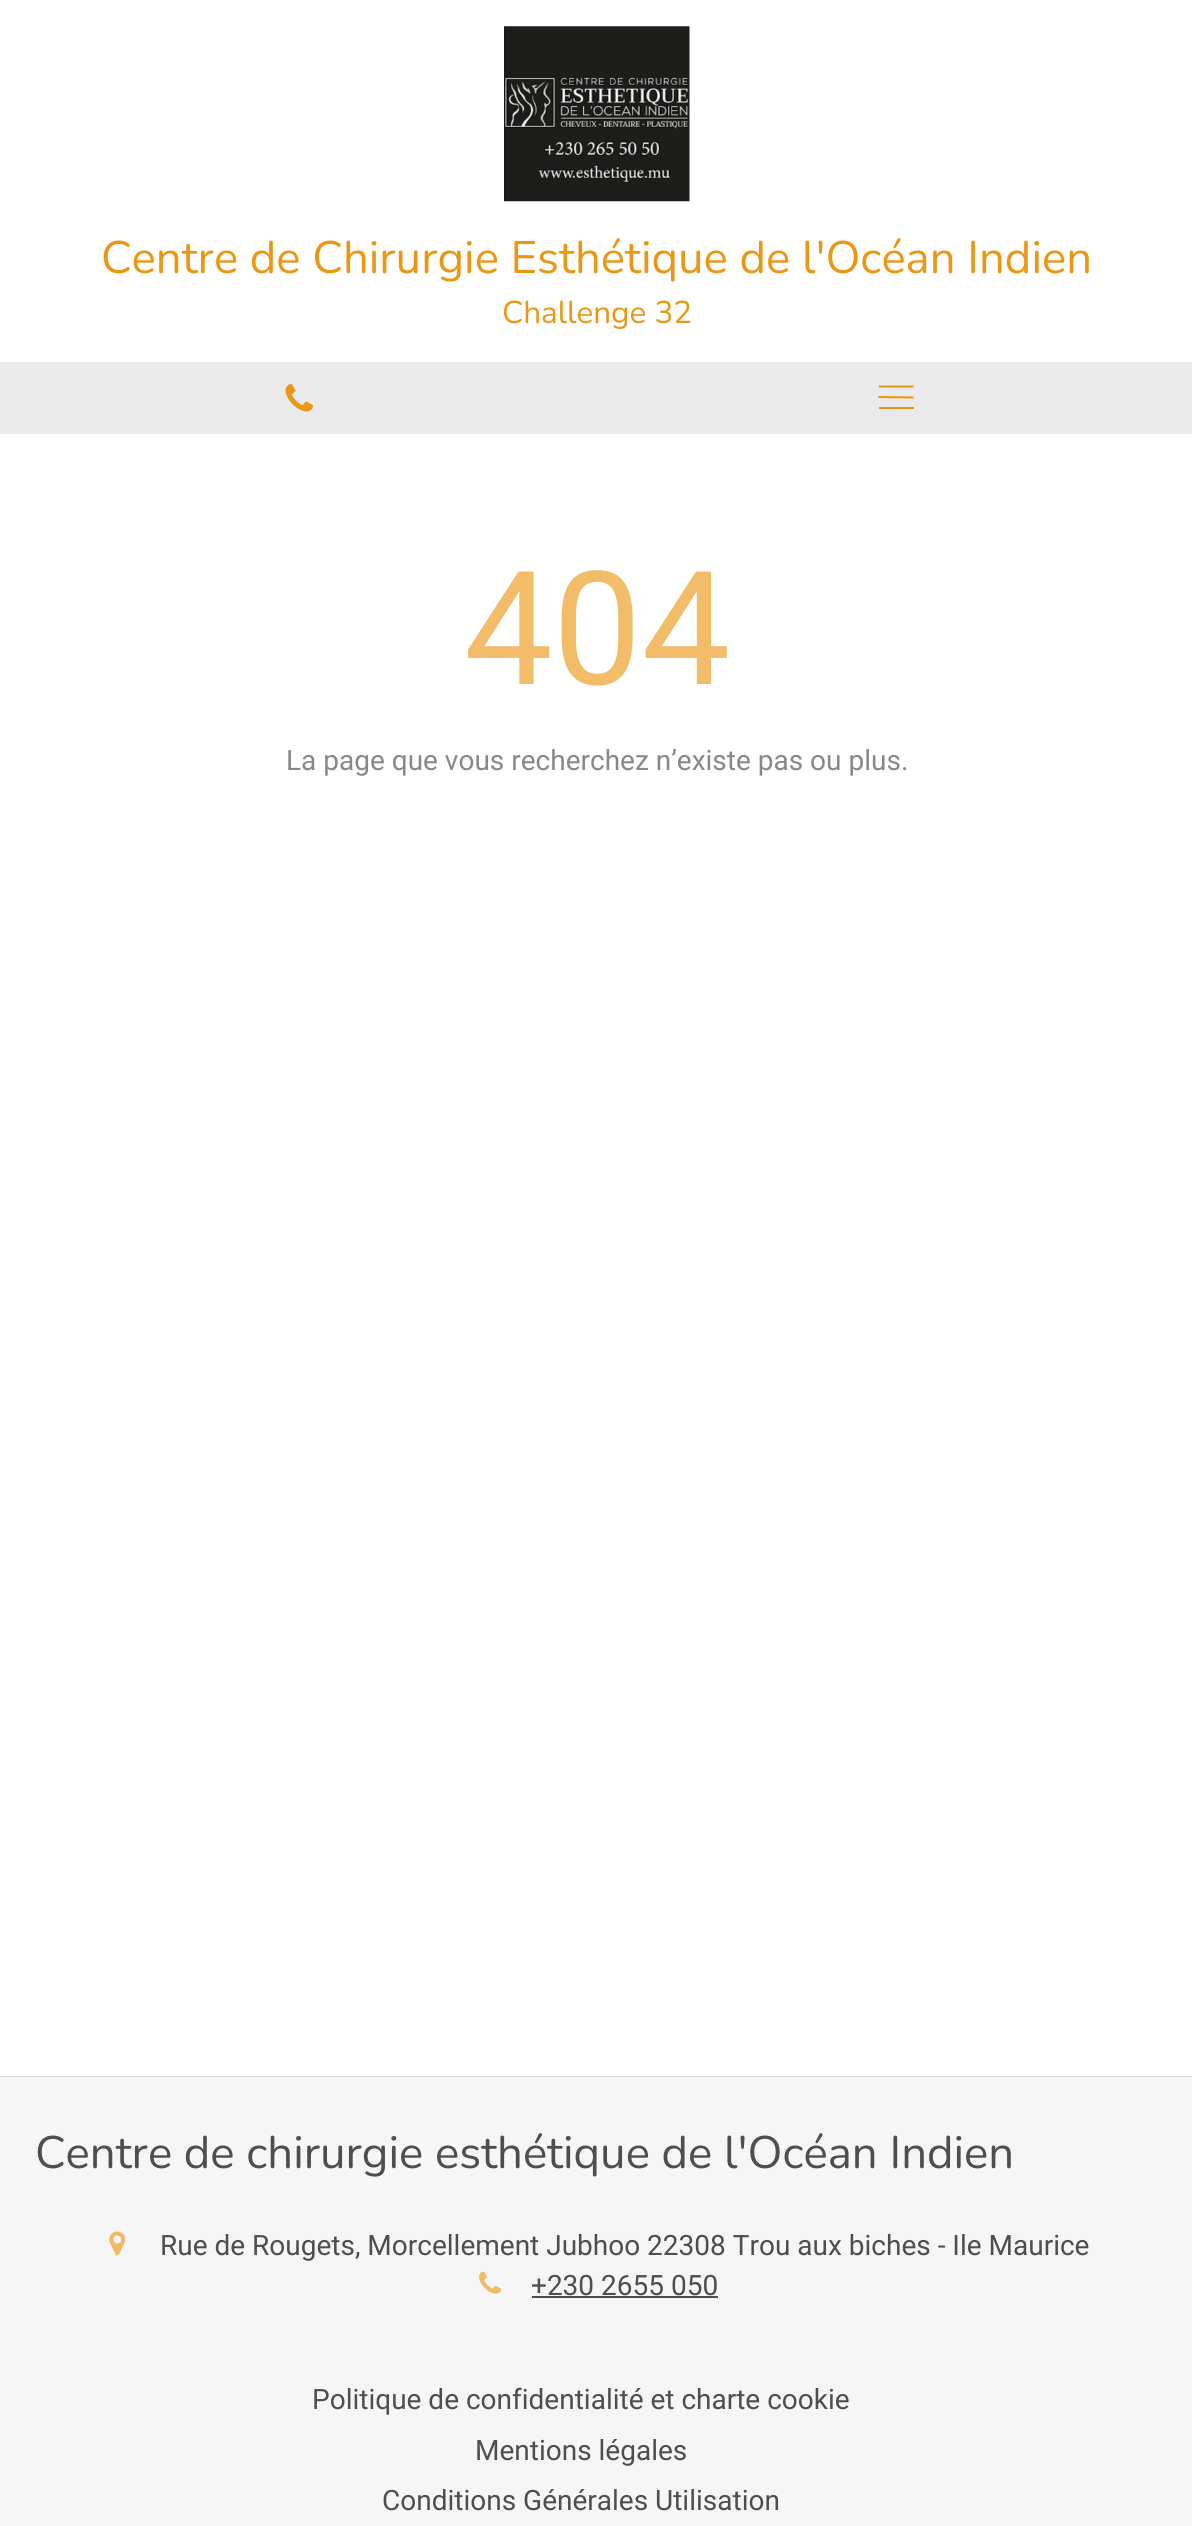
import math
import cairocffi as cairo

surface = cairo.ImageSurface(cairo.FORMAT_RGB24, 1192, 2526)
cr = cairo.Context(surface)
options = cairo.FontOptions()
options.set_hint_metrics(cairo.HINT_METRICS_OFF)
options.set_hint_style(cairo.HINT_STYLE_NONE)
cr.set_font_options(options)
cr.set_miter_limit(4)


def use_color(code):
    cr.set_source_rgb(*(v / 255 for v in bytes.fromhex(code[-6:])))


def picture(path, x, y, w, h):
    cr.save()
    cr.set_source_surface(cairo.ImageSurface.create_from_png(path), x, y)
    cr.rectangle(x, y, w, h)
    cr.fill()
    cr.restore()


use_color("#ffffff")
cr.paint()
picture("img1.png", 504, 26, 186, 176)
cr.select_font_face("Nunito")
cr.set_font_size(45.5)
use_color("#ec9714")
cr.move_to(101, 273)
cr.show_text("Centre de Chirurgie Esthétique de l'Océan Indien")
cr.set_font_size(31.5)
cr.move_to(502, 323)
cr.show_text("Challenge 32")
use_color("#eaeaea")
cr.rectangle(0, 362, 1192, 72)
cr.fill()
picture("img2.png", 285, 384, 28, 28)
cr.save()
cr.rectangle(879, 380, 35, 35)
cr.clip()
cr.new_path()
cr.move_to(878.5, 386.5)
cr.line_to(913.5, 386.5)
use_color("#ec9714")
cr.set_line_width(2.1)
cr.stroke()
cr.restore()
cr.new_path()
cr.move_to(878.5, 397)
cr.line_to(913.5, 397.5)
use_color("#ec9714")
cr.set_line_width(2.1)
cr.stroke()
cr.rectangle(879, 407, 35, 2)
cr.fill()
cr.select_font_face("Roboto")
cr.set_font_size(158)
use_color("#f3bc69")
cr.move_to(464, 684)
cr.show_text("404")
cr.set_font_size(28)
use_color("#888888")
cr.move_to(286, 770)
cr.show_text("La page que vous recherchez n’existe pas ou plus.")
use_color("#dddddd")
cr.rectangle(0, 2076, 1192, 1)
cr.fill()
use_color("#f6f6f6")
cr.rectangle(0, 2077, 1192, 449)
cr.fill()
cr.select_font_face("Nunito")
cr.set_font_size(45.5)
use_color("#4e4e4e")
cr.move_to(35, 2168)
cr.show_text("Centre de chirurgie esthétique de l'Océan Indien")
picture("img3.png", 109, 2231, 17, 25)
cr.select_font_face("Roboto")
cr.set_font_size(28)
cr.move_to(160, 2255)
cr.show_text("Rue de Rougets, Morcellement Jubhoo 22308 Trou aux biches - Ile Maurice")
picture("img4.png", 479, 2271, 22, 23)
cr.move_to(531, 2295)
cr.show_text("+230 2655 050")
cr.rectangle(532, 2296, 186, 2)
cr.fill()
cr.move_to(312, 2409)
cr.show_text("Politique de confidentialité et charte cookie")
cr.move_to(475, 2460)
cr.show_text("Mentions légales")
cr.move_to(382, 2510)
cr.show_text("Conditions Générales Utilisation")
surface.write_to_png("result.png")
